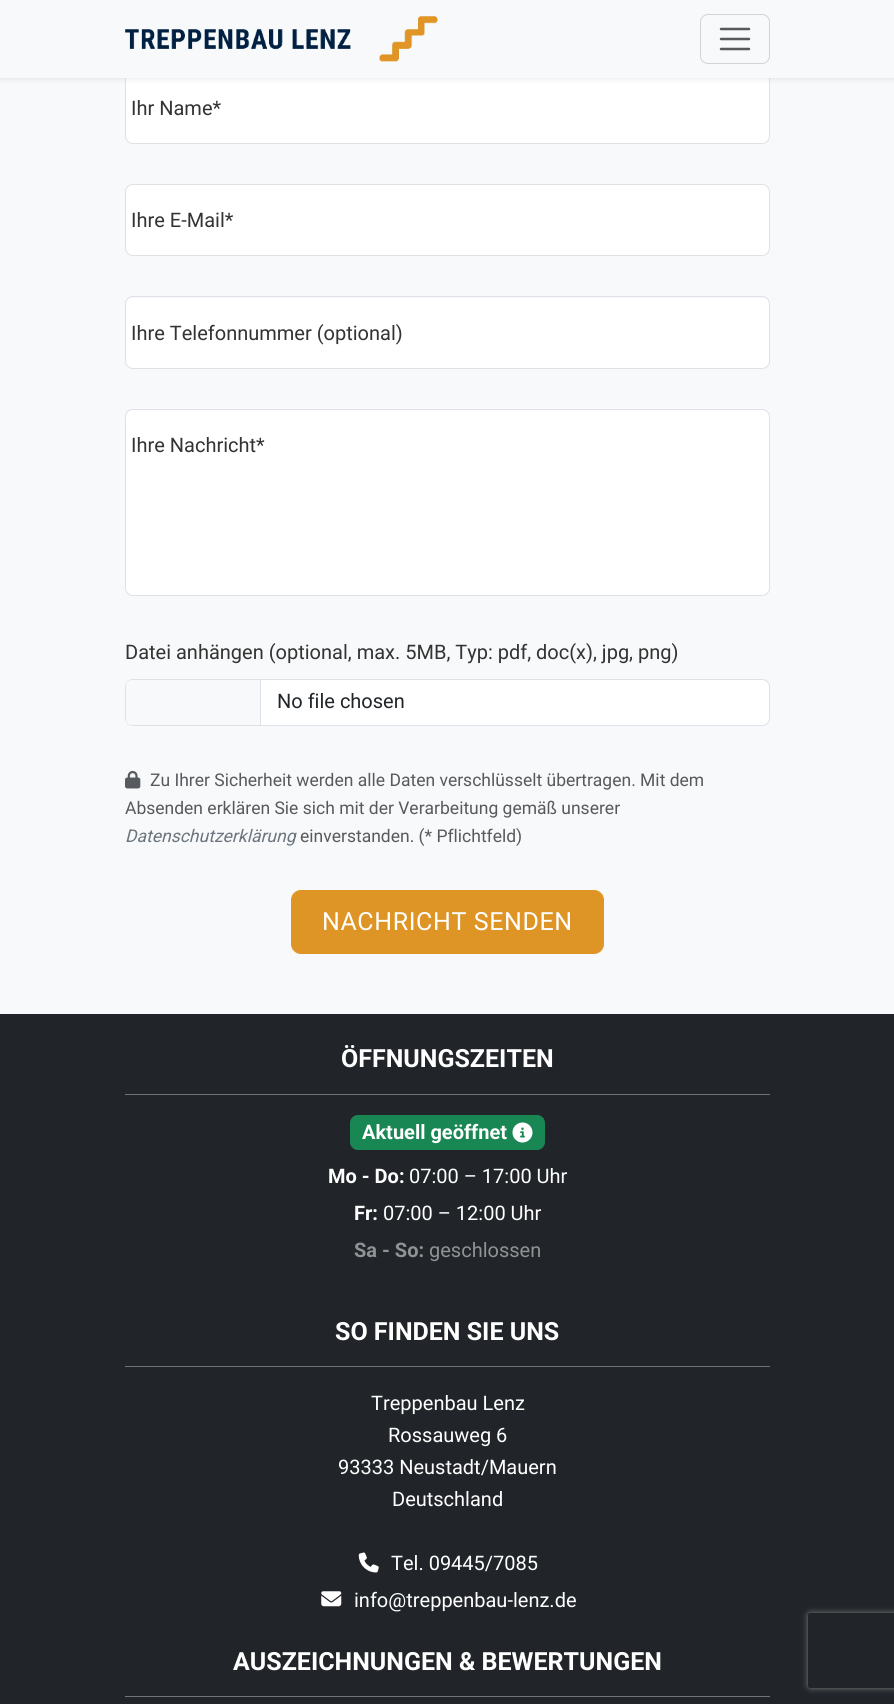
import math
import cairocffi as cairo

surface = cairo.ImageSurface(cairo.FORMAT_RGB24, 894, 1704)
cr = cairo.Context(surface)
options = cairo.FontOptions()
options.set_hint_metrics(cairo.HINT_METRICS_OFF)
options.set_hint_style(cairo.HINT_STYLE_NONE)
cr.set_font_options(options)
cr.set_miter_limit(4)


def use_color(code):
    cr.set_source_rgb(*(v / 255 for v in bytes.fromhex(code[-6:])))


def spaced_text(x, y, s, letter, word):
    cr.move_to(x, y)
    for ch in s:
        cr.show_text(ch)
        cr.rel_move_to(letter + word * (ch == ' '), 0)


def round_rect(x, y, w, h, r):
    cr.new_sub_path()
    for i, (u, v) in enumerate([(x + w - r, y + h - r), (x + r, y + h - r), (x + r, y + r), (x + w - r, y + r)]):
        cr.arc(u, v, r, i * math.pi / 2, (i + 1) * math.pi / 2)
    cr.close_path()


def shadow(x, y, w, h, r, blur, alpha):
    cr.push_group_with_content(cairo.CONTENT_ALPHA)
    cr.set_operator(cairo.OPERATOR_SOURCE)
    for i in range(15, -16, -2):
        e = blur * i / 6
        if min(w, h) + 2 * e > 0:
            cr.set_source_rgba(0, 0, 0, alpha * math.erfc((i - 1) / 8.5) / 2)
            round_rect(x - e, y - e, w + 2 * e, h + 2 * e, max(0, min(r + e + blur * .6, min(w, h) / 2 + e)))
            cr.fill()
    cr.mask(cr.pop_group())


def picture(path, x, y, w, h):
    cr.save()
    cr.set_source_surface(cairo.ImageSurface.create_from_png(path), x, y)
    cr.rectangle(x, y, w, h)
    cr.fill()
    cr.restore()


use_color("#f8f9fa")
cr.paint()
use_color("#ffffff")
round_rect(126, 73, 643, 70, 6)
cr.fill()
round_rect(125.5, 71.5, 644, 72, 7.5)
use_color("#dee2e6")
cr.set_line_width(1)
cr.stroke()
use_color("#000000")
shadow(0, 3, 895, 77, 0, 2.5, 0.07)
use_color("#f8f9fa")
cr.rectangle(0, 0, 894, 78)
cr.fill()
picture("img1.png", 125, 16, 313, 46)
round_rect(700.5, 14.5, 69, 49, 7.5)
use_color("#d3d4d5")
cr.stroke()
cr.new_path()
cr.move_to(721, 29)
cr.line_to(749, 29)
cr.move_to(721, 39)
cr.line_to(749, 39)
cr.move_to(721, 49)
cr.line_to(749, 49)
use_color("#575a5d")
cr.set_line_width(2.5)
cr.set_line_cap(cairo.LINE_CAP_ROUND)
cr.stroke()
cr.select_font_face("Roboto")
cr.set_font_size(20)
use_color("#333333")
cr.move_to(131, 115)
cr.show_text("Ihr Name*")
use_color("#ffffff")
round_rect(126, 185, 643, 70, 6)
cr.fill()
round_rect(125.5, 184.5, 644, 71, 7.5)
use_color("#dee2e6")
cr.set_line_width(1)
cr.set_line_cap(cairo.LINE_CAP_BUTT)
cr.stroke()
use_color("#333333")
cr.move_to(131, 227)
cr.show_text("Ihre E-Mail*")
use_color("#ffffff")
round_rect(126, 298, 643, 70, 6)
cr.fill()
round_rect(125.5, 296.5, 644, 72, 7.5)
use_color("#dee2e6")
cr.stroke()
use_color("#333333")
cr.move_to(131, 340)
cr.show_text("Ihre Telefonnummer (optional)")
use_color("#ffffff")
round_rect(126, 410, 643, 185, 6)
cr.fill()
round_rect(125.5, 409.5, 644, 186, 7.5)
use_color("#dee2e6")
cr.stroke()
use_color("#333333")
cr.move_to(131, 452)
cr.show_text("Ihre Nachricht*")
cr.move_to(125, 659)
cr.show_text("Datei anhängen (optional, max. 5MB, Typ: pdf, doc(x), jpg, png)")
use_color("#ffffff")
round_rect(126, 680, 643, 45, 6)
cr.fill()
round_rect(125.5, 679.5, 644, 46, 7.5)
use_color("#dee2e6")
cr.stroke()
use_color("#f8f9fa")
cr.new_path()
cr.move_to(132, 680)
cr.line_to(260, 680)
cr.line_to(260, 725)
cr.line_to(132, 725)
cr.curve_to(128.5, 725, 126, 722.5, 126, 719)
cr.line_to(126, 686)
cr.curve_to(126, 682.5, 128.5, 680, 132, 680)
cr.close_path()
cr.fill()
use_color("#dee2e6")
cr.rectangle(260, 680, 1, 45)
cr.fill()
use_color("#212529")
cr.move_to(277, 708)
cr.show_text("No file chosen")
picture("img2.png", 125, 770, 16, 19)
cr.set_font_size(17.5)
use_color("#575a5d")
cr.move_to(150, 786)
cr.show_text("Zu Ihrer Sicherheit werden alle Daten verschlüsselt übertragen. Mit dem")
cr.move_to(125, 814)
cr.show_text("Absenden erklären Sie sich mit der Verarbeitung gemäß unserer")
cr.select_font_face("Roboto", cairo.FONT_SLANT_ITALIC)
use_color("#6c757d")
cr.move_to(125, 842)
cr.show_text("Datenschutzerklärung")
cr.select_font_face("Roboto")
use_color("#575a5d")
cr.move_to(300, 842)
cr.show_text("einverstanden. (* Pflichtfeld)")
use_color("#df9525")
round_rect(291.5, 890.5, 312, 63, 9.5)
cr.fill_preserve()
cr.stroke()
cr.set_font_size(25)
use_color("#ffffff")
spaced_text(322, 930, "NACHRICHT SENDEN", 0.6, 0)
use_color("#212529")
cr.rectangle(0, 1014, 894, 690)
cr.fill()
cr.select_font_face("Roboto", cairo.FONT_SLANT_NORMAL, cairo.FONT_WEIGHT_BOLD)
use_color("#ffffff")
cr.move_to(341, 1067)
cr.show_text("ÖFFNUNGSZEITEN")
use_color("#6c757d")
cr.rectangle(125, 1094, 645, 1)
cr.fill()
use_color("#198754")
round_rect(350, 1115, 195, 35, 8)
cr.fill()
cr.set_font_size(20)
use_color("#ffffff")
cr.move_to(362, 1139)
cr.show_text("Aktuell geöffnet")
picture("img3.png", 512, 1122, 21, 21)
cr.move_to(328, 1183)
cr.show_text("Mo - Do:")
cr.select_font_face("Roboto")
cr.move_to(409, 1183)
cr.show_text("07:00 – 17:00 Uhr")
cr.select_font_face("Roboto", cairo.FONT_SLANT_NORMAL, cairo.FONT_WEIGHT_BOLD)
cr.move_to(354, 1220)
cr.show_text("Fr:")
cr.select_font_face("Roboto")
cr.move_to(383, 1220)
cr.show_text("07:00 – 12:00 Uhr")
cr.select_font_face("Roboto", cairo.FONT_SLANT_NORMAL, cairo.FONT_WEIGHT_BOLD)
use_color("#909294")
cr.move_to(354, 1257)
cr.show_text("Sa - So:")
cr.select_font_face("Roboto")
cr.move_to(429, 1257)
cr.show_text("geschlossen")
cr.select_font_face("Roboto", cairo.FONT_SLANT_NORMAL, cairo.FONT_WEIGHT_BOLD)
cr.set_font_size(25)
use_color("#ffffff")
cr.move_to(335, 1340)
cr.show_text("SO FINDEN SIE UNS")
use_color("#6c757d")
cr.rectangle(125, 1366, 645, 1)
cr.fill()
cr.select_font_face("Roboto")
cr.set_font_size(20)
use_color("#ffffff")
cr.move_to(371, 1410)
cr.show_text("Treppenbau Lenz")
cr.move_to(388, 1442)
cr.show_text("Rossauweg 6")
cr.move_to(338, 1474)
cr.show_text("93333 Neustadt/Mauern")
cr.move_to(392, 1506)
cr.show_text("Deutschland")
picture("img4.png", 358, 1552, 21, 21)
cr.move_to(391, 1570)
cr.show_text("Tel. 09445/7085")
picture("img5.png", 321, 1591, 21, 16)
cr.move_to(354, 1607)
cr.show_text("info@treppenbau-lenz.de")
cr.select_font_face("Roboto", cairo.FONT_SLANT_NORMAL, cairo.FONT_WEIGHT_BOLD)
cr.set_font_size(25)
cr.move_to(233, 1670)
cr.show_text("AUSZEICHNUNGEN & BEWERTUNGEN")
use_color("#6c757d")
cr.rectangle(125, 1696, 645, 1)
cr.fill()
cr.save()
cr.set_fill_rule(cairo.FILL_RULE_EVEN_ODD)
cr.new_path()
cr.move_to(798, 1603)
cr.line_to(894, 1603)
cr.line_to(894, 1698)
cr.line_to(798, 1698)
cr.close_path()
cr.move_to(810.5, 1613)
cr.line_to(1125.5, 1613)
cr.curve_to(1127, 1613, 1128, 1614, 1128, 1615.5)
cr.line_to(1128, 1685.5)
cr.curve_to(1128, 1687, 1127, 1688, 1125.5, 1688)
cr.line_to(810.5, 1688)
cr.curve_to(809, 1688, 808, 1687, 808, 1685.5)
cr.line_to(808, 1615.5)
cr.curve_to(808, 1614, 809, 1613, 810.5, 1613)
cr.close_path()
cr.clip()
use_color("#808080")
shadow(808, 1613, 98, 75, 2.5, 3, 1)
cr.restore()
surface.write_to_png("result.png")
